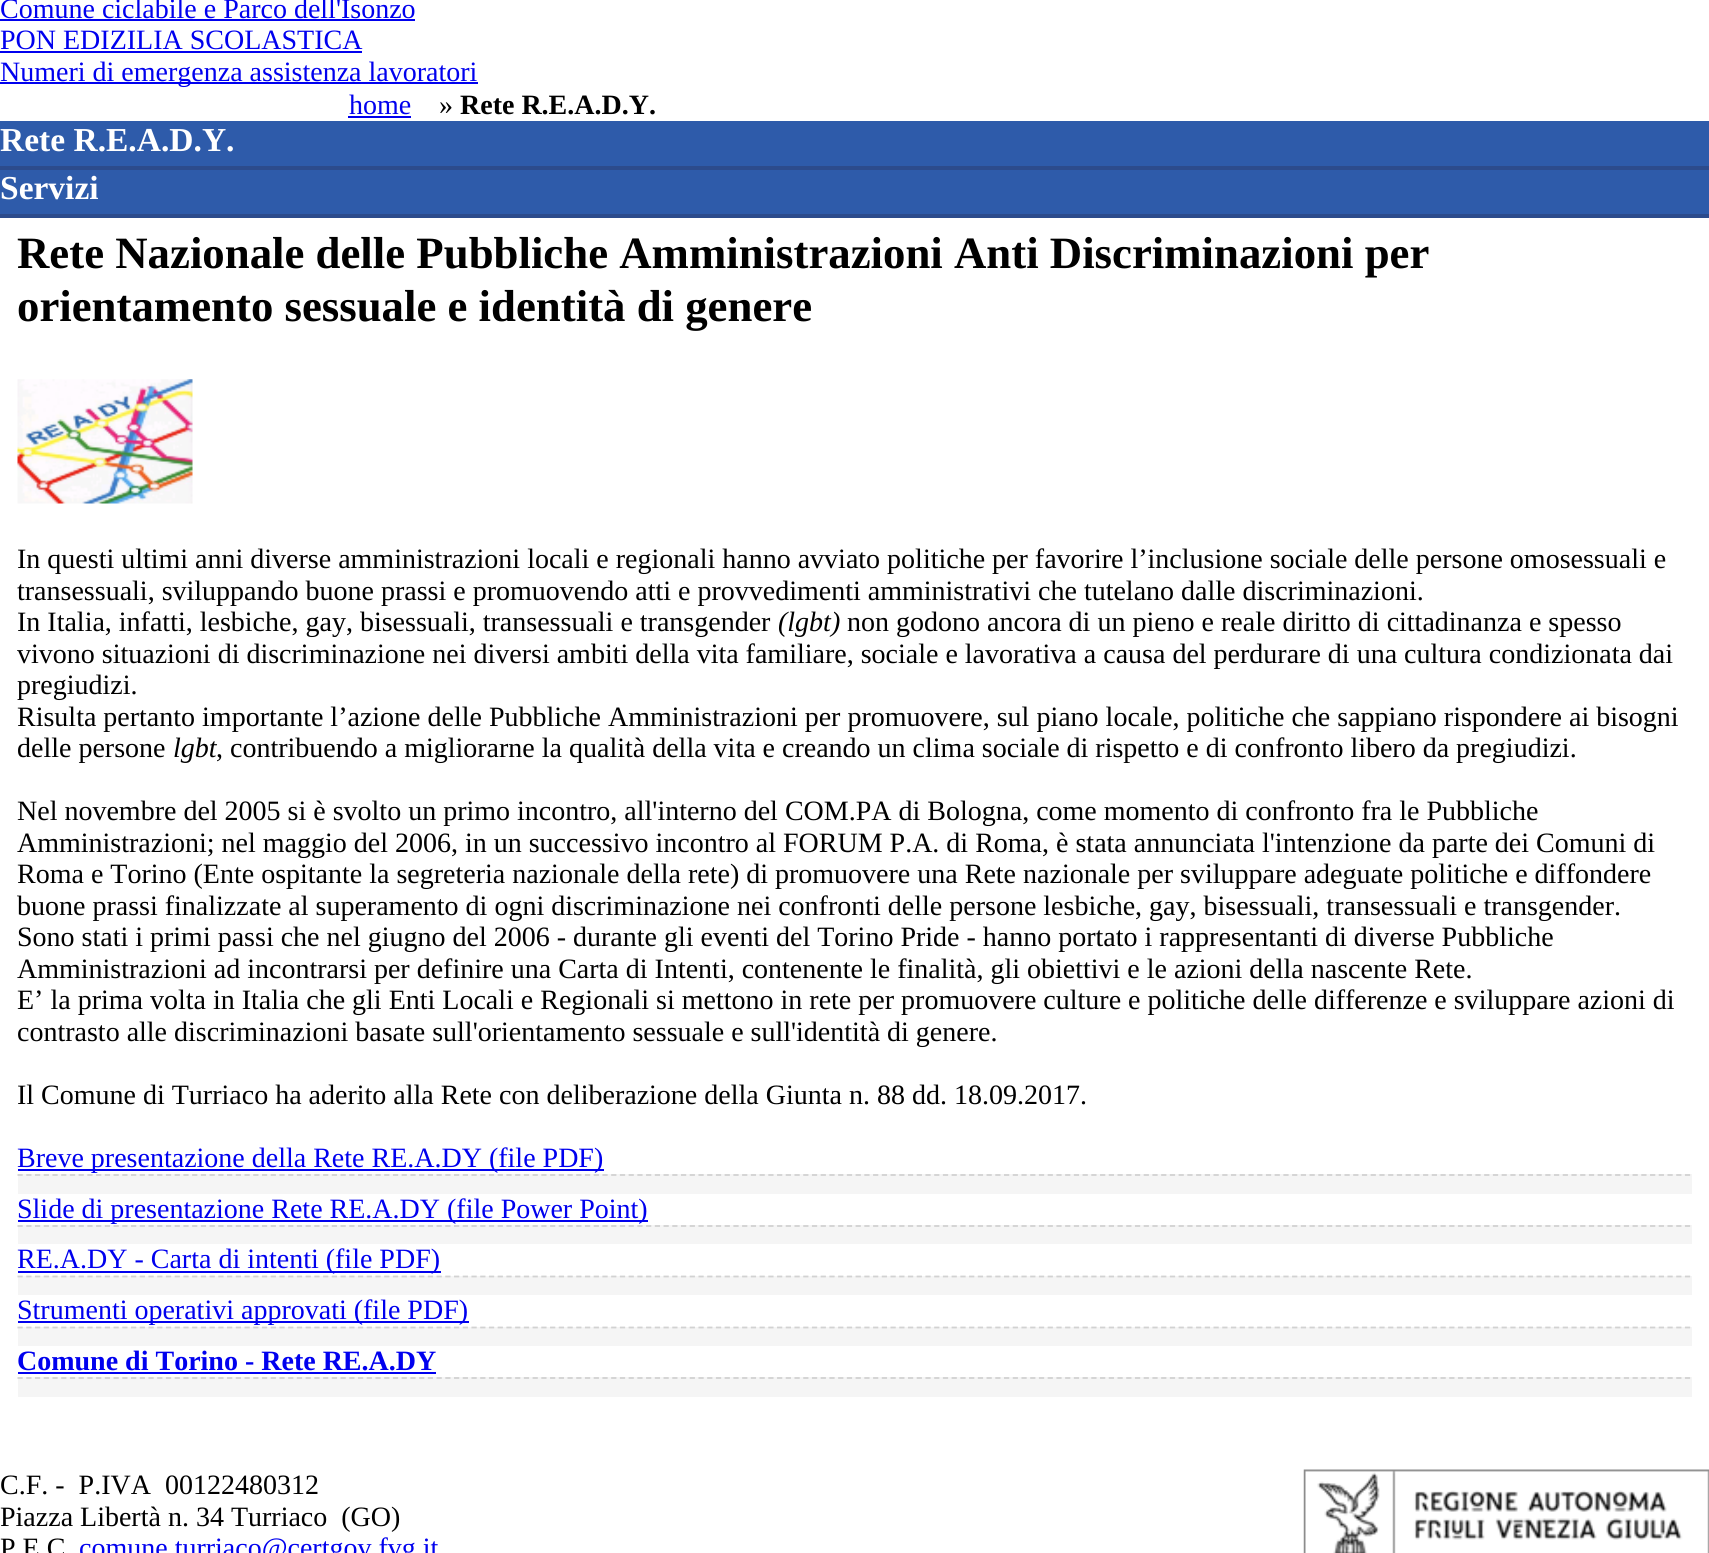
import math
import cairocffi as cairo

surface = cairo.ImageSurface(cairo.FORMAT_RGB24, 1709, 1553)
cr = cairo.Context(surface)
options = cairo.FontOptions()
options.set_hint_metrics(cairo.HINT_METRICS_OFF)
options.set_hint_style(cairo.HINT_STYLE_NONE)
cr.set_font_options(options)
cr.set_miter_limit(4)


def use_color(code):
    cr.set_source_rgb(*(v / 255 for v in bytes.fromhex(code[-6:])))


def picture(path, x, y, w, h):
    cr.save()
    cr.set_source_surface(cairo.ImageSurface.create_from_png(path), x, y)
    cr.rectangle(x, y, w, h)
    cr.fill()
    cr.restore()


use_color("#ffffff")
cr.paint()
cr.select_font_face("Liberation Serif")
cr.set_font_size(28)
use_color("#0000ee")
cr.move_to(0, 18)
cr.show_text("Comune ciclabile e Parco dell'Isonzo")
cr.rectangle(0, 19, 415, 2)
cr.fill()
cr.move_to(0, 49)
cr.show_text("PON EDIZILIA SCOLASTICA")
cr.rectangle(0, 51, 362, 2)
cr.fill()
cr.rectangle(0, 82, 478, 2)
cr.fill()
cr.move_to(0, 81)
cr.show_text("Numeri di emergenza assistenza lavoratori")
cr.move_to(349, 114)
cr.show_text("home")
cr.rectangle(348, 116, 63, 2)
cr.fill()
use_color("#000000")
cr.move_to(439, 114)
cr.show_text("»")
cr.select_font_face("Liberation Serif", cairo.FONT_SLANT_NORMAL, cairo.FONT_WEIGHT_BOLD)
cr.move_to(460, 114)
cr.show_text("Rete R.E.A.D.Y.")
use_color("#2e5baa")
cr.rectangle(0, 121, 1709, 45)
cr.fill()
use_color("#2c4b8c")
cr.rectangle(0, 166, 1709, 4)
cr.fill()
cr.set_font_size(33.5)
use_color("#ffffff")
cr.move_to(0, 151)
cr.show_text("Rete R.E.A.D.Y.")
use_color("#2e5baa")
cr.rectangle(0, 170, 1709, 44)
cr.fill()
use_color("#2c4b8c")
cr.rectangle(0, 214, 1709, 4)
cr.fill()
use_color("#ffffff")
cr.move_to(0, 199)
cr.show_text("Servizi")
cr.set_font_size(44.8)
use_color("#000000")
cr.move_to(17, 268)
cr.show_text("Rete Nazionale delle Pubbliche Amministrazioni Anti Discriminazioni per")
cr.move_to(17, 321)
cr.show_text("orientamento sessuale e identità di genere")
picture("img1.png", 17, 379, 176, 125)
cr.select_font_face("Liberation Serif")
cr.set_font_size(28)
cr.move_to(17, 568)
cr.show_text("In questi ultimi anni diverse amministrazioni locali e regionali hanno avviato politiche per favorire l’inclusione sociale delle persone omosessuali e")
cr.move_to(17, 600)
cr.show_text("transessuali, sviluppando buone prassi e promuovendo atti e provvedimenti amministrativi che tutelano dalle discriminazioni.")
cr.move_to(17, 631)
cr.show_text("In Italia, infatti, lesbiche, gay, bisessuali, transessuali e transgender")
cr.select_font_face("Liberation Serif", cairo.FONT_SLANT_ITALIC)
cr.move_to(778, 631)
cr.show_text("(lgbt)")
cr.select_font_face("Liberation Serif")
cr.move_to(847, 631)
cr.show_text("non godono ancora di un pieno e reale diritto di cittadinanza e spesso")
cr.move_to(17, 663)
cr.show_text("vivono situazioni di discriminazione nei diversi ambiti della vita familiare, sociale e lavorativa a causa del perdurare di una cultura condizionata dai")
cr.move_to(17, 694)
cr.show_text("pregiudizi.")
cr.move_to(17, 726)
cr.show_text("Risulta pertanto importante l’azione delle Pubbliche Amministrazioni per promuovere, sul piano locale, politiche che sappiano rispondere ai bisogni")
cr.move_to(17, 757)
cr.show_text("delle persone")
cr.select_font_face("Liberation Serif", cairo.FONT_SLANT_ITALIC)
cr.move_to(173, 757)
cr.show_text("lgbt")
cr.select_font_face("Liberation Serif")
cr.move_to(216, 757)
cr.show_text(", contribuendo a migliorarne la qualità della vita e creando un clima sociale di rispetto e di confronto libero da pregiudizi.")
cr.move_to(17, 820)
cr.show_text("Nel novembre del 2005 si è svolto un primo incontro, all'interno del COM.PA di Bologna, come momento di confronto fra le Pubbliche")
cr.move_to(17, 852)
cr.show_text("Amministrazioni; nel maggio del 2006, in un successivo incontro al FORUM P.A. di Roma, è stata annunciata l'intenzione da parte dei Comuni di")
cr.move_to(17, 883)
cr.show_text("Roma e Torino (Ente ospitante la segreteria nazionale della rete) di promuovere una Rete nazionale per sviluppare adeguate politiche e diffondere")
cr.move_to(17, 915)
cr.show_text("buone prassi finalizzate al superamento di ogni discriminazione nei confronti delle persone lesbiche, gay, bisessuali, transessuali e transgender.")
cr.move_to(17, 946)
cr.show_text("Sono stati i primi passi che nel giugno del 2006 - durante gli eventi del Torino Pride - hanno portato i rappresentanti di diverse Pubbliche")
cr.move_to(17, 978)
cr.show_text("Amministrazioni ad incontrarsi per definire una Carta di Intenti, contenente le finalità, gli obiettivi e le azioni della nascente Rete.")
cr.move_to(17, 1009)
cr.show_text("E’ la prima volta in Italia che gli Enti Locali e Regionali si mettono in rete per promuovere culture e politiche delle differenze e sviluppare azioni di")
cr.move_to(17, 1041)
cr.show_text("contrasto alle discriminazioni basate sull'orientamento sessuale e sull'identità di genere.")
cr.move_to(17, 1104)
cr.show_text("Il Comune di Turriaco ha aderito alla Rete con deliberazione della Giunta n. 88 dd. 18.09.2017.")
use_color("#0000ee")
cr.rectangle(18, 1169, 586, 2)
cr.fill()
cr.move_to(17, 1167)
cr.show_text("Breve presentazione della Rete RE.A.DY (file PDF)")
use_color("#f5f5f5")
cr.rectangle(18, 1174, 1674, 20)
cr.fill()
cr.new_path()
cr.move_to(17.5, 1175)
cr.line_to(1692, 1175)
use_color("#d2d2d2")
cr.set_line_width(1.8)
cr.set_dash([5.25, 3.48])
cr.stroke()
use_color("#0000ee")
cr.rectangle(18, 1220, 630, 2)
cr.fill()
cr.move_to(17, 1218)
cr.show_text("Slide di presentazione Rete RE.A.DY (file Power Point)")
use_color("#f5f5f5")
cr.rectangle(18, 1225, 1674, 19)
cr.fill()
cr.new_path()
cr.move_to(17.5, 1226)
cr.line_to(1692, 1226)
use_color("#d2d2d2")
cr.stroke()
use_color("#0000ee")
cr.rectangle(18, 1271, 423, 2)
cr.fill()
cr.move_to(17, 1268)
cr.show_text("RE.A.DY - Carta di intenti (file PDF)")
use_color("#f5f5f5")
cr.rectangle(18, 1276, 1674, 19)
cr.fill()
cr.new_path()
cr.move_to(17.5, 1276.5)
cr.line_to(1692, 1276.5)
use_color("#d2d2d2")
cr.stroke()
use_color("#0000ee")
cr.rectangle(18, 1321, 451, 2)
cr.fill()
cr.move_to(17, 1319)
cr.show_text("Strumenti operativi approvati (file PDF)")
use_color("#f5f5f5")
cr.rectangle(18, 1327, 1674, 19)
cr.fill()
cr.new_path()
cr.move_to(17.5, 1327.5)
cr.line_to(1692, 1327.5)
use_color("#d2d2d2")
cr.stroke()
cr.select_font_face("Liberation Serif", cairo.FONT_SLANT_NORMAL, cairo.FONT_WEIGHT_BOLD)
use_color("#0000ee")
cr.move_to(17, 1370)
cr.show_text("Comune di Torino - Rete RE.A.DY")
cr.rectangle(18, 1372, 418, 2)
cr.fill()
use_color("#f5f5f5")
cr.rectangle(18, 1377, 1674, 20)
cr.fill()
cr.new_path()
cr.move_to(17.5, 1378)
cr.line_to(1692, 1378)
use_color("#d2d2d2")
cr.stroke()
cr.select_font_face("Liberation Serif")
use_color("#000000")
cr.move_to(0, 1494)
cr.show_text("C.F. -  P.IVA  00122480312")
cr.move_to(0, 1526)
cr.show_text("Piazza Libertà n. 34 Turriaco  (GO)")
cr.move_to(0, 1557)
cr.show_text("P.E.C")
use_color("#0000ee")
cr.move_to(79, 1557)
cr.show_text("comune.turriaco@certgov.fvg.it")
picture("img2.png", 1303, 1469, 406, 84)
surface.write_to_png("result.png")
